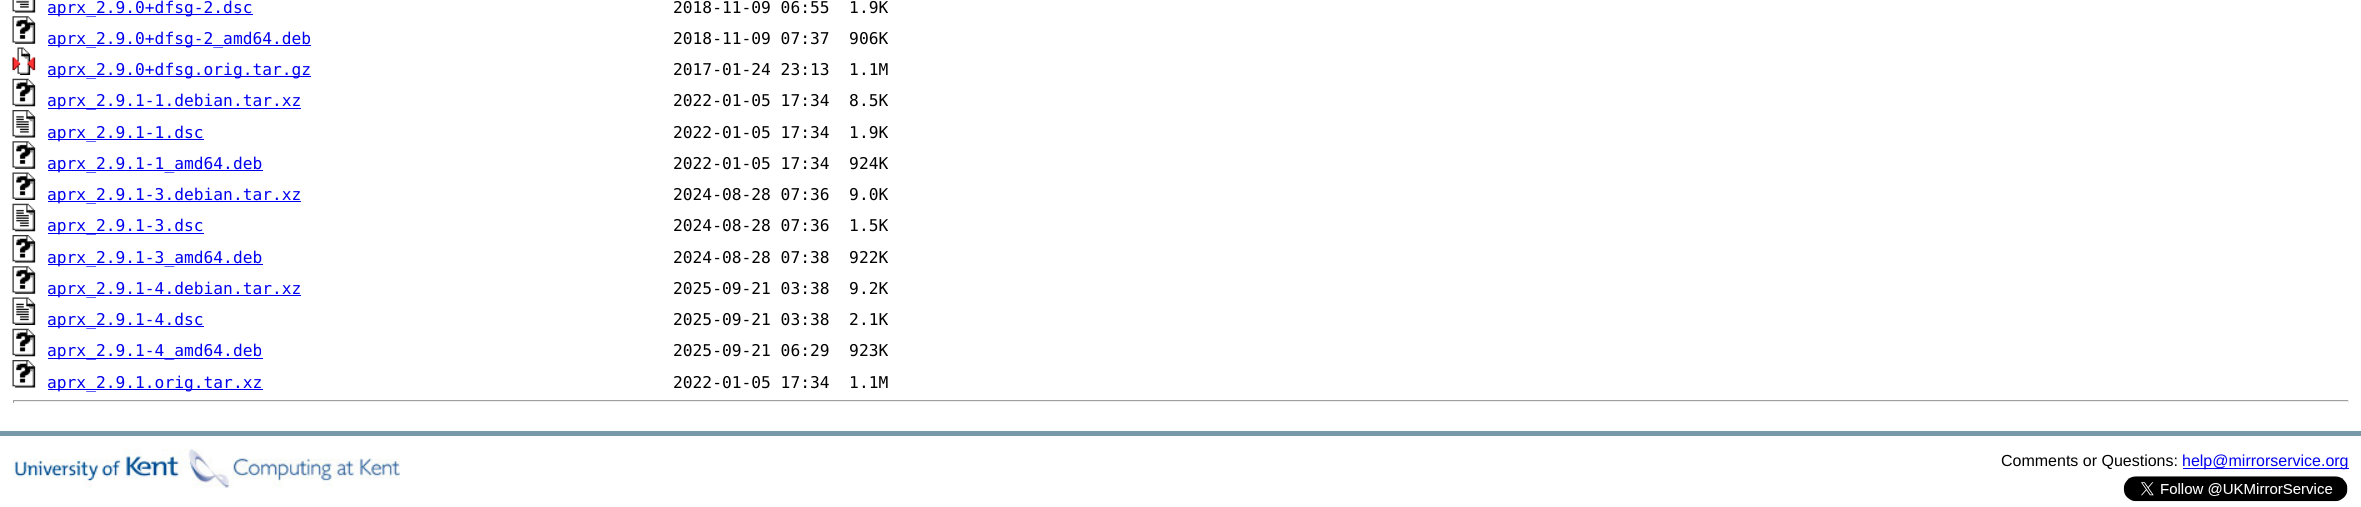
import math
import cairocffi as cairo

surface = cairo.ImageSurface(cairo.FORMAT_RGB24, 2361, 507)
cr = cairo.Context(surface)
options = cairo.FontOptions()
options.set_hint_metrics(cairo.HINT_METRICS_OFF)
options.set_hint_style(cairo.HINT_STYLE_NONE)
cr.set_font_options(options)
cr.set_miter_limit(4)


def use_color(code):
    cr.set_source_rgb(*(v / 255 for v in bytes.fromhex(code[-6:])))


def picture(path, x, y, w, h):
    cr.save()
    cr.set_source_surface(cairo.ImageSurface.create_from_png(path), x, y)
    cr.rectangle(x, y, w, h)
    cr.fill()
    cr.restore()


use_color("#ffffff")
cr.paint()
picture("img1.png", 12, 0, 24, 13)
use_color("#0000ee")
cr.rectangle(48, 14, 205, 1)
cr.fill()
cr.select_font_face("DejaVu Sans Mono")
cr.set_font_size(16.25)
cr.move_to(47, 13)
cr.show_text("aprx_2.9.0+dfsg-2.dsc")
use_color("#000000")
cr.move_to(673, 13)
cr.show_text("2018-11-09 06:55  1.9K")
picture("img2.png", 12, 16, 24, 28)
use_color("#0000ee")
cr.rectangle(48, 45, 263, 1)
cr.fill()
cr.move_to(47, 44)
cr.show_text("aprx_2.9.0+dfsg-2_amd64.deb")
use_color("#000000")
cr.move_to(673, 44)
cr.show_text("2018-11-09 07:37  906K")
picture("img3.png", 12, 47, 24, 28)
use_color("#0000ee")
cr.rectangle(48, 76, 263, 1)
cr.fill()
cr.move_to(47, 75)
cr.show_text("aprx_2.9.0+dfsg.orig.tar.gz")
use_color("#000000")
cr.move_to(673, 75)
cr.show_text("2017-01-24 23:13  1.1M")
picture("img4.png", 12, 78, 24, 29)
use_color("#0000ee")
cr.rectangle(48, 108, 253, 1)
cr.fill()
cr.move_to(47, 106)
cr.show_text("aprx_2.9.1-1.debian.tar.xz")
use_color("#000000")
cr.move_to(673, 106)
cr.show_text("2022-01-05 17:34  8.5K")
picture("img5.png", 12, 110, 24, 28)
use_color("#0000ee")
cr.rectangle(48, 139, 156, 1)
cr.fill()
cr.move_to(47, 138)
cr.show_text("aprx_2.9.1-1.dsc")
use_color("#000000")
cr.move_to(673, 138)
cr.show_text("2022-01-05 17:34  1.9K")
picture("img2.png", 12, 141, 24, 28)
use_color("#0000ee")
cr.rectangle(48, 170, 215, 1)
cr.fill()
cr.move_to(47, 169)
cr.show_text("aprx_2.9.1-1_amd64.deb")
use_color("#000000")
cr.move_to(673, 169)
cr.show_text("2022-01-05 17:34  924K")
picture("img6.png", 12, 172, 24, 28)
use_color("#0000ee")
cr.rectangle(48, 201, 253, 1)
cr.fill()
cr.move_to(47, 200)
cr.show_text("aprx_2.9.1-3.debian.tar.xz")
use_color("#000000")
cr.move_to(673, 200)
cr.show_text("2024-08-28 07:36  9.0K")
picture("img7.png", 12, 203, 24, 29)
use_color("#0000ee")
cr.rectangle(48, 233, 156, 1)
cr.fill()
cr.move_to(47, 231)
cr.show_text("aprx_2.9.1-3.dsc")
use_color("#000000")
cr.move_to(673, 231)
cr.show_text("2024-08-28 07:36  1.5K")
picture("img8.png", 12, 235, 24, 28)
use_color("#0000ee")
cr.rectangle(48, 264, 215, 1)
cr.fill()
cr.move_to(47, 263)
cr.show_text("aprx_2.9.1-3_amd64.deb")
use_color("#000000")
cr.move_to(673, 263)
cr.show_text("2024-08-28 07:38  922K")
picture("img2.png", 12, 266, 24, 28)
use_color("#0000ee")
cr.rectangle(48, 295, 253, 1)
cr.fill()
cr.move_to(47, 294)
cr.show_text("aprx_2.9.1-4.debian.tar.xz")
use_color("#000000")
cr.move_to(673, 294)
cr.show_text("2025-09-21 03:38  9.2K")
picture("img9.png", 12, 297, 24, 28)
use_color("#0000ee")
cr.rectangle(48, 326, 156, 1)
cr.fill()
cr.move_to(47, 325)
cr.show_text("aprx_2.9.1-4.dsc")
use_color("#000000")
cr.move_to(673, 325)
cr.show_text("2025-09-21 03:38  2.1K")
picture("img4.png", 12, 328, 24, 29)
use_color("#0000ee")
cr.rectangle(48, 358, 215, 1)
cr.fill()
cr.move_to(47, 356)
cr.show_text("aprx_2.9.1-4_amd64.deb")
use_color("#000000")
cr.move_to(673, 356)
cr.show_text("2025-09-21 06:29  923K")
picture("img8.png", 12, 360, 24, 28)
use_color("#0000ee")
cr.rectangle(48, 389, 215, 1)
cr.fill()
cr.move_to(47, 388)
cr.show_text("aprx_2.9.1.orig.tar.xz")
use_color("#000000")
cr.move_to(673, 388)
cr.show_text("2022-01-05 17:34  1.1M")
use_color("#9f9f9f")
cr.rectangle(13, 400, 2336, 1)
cr.fill()
use_color("#eeeeee")
cr.rectangle(2348, 400, 1, 3)
cr.fill()
cr.rectangle(13, 401, 2336, 1)
cr.fill()
use_color("#9f9f9f")
cr.rectangle(13, 400, 1, 3)
cr.fill()
use_color("#7799aa")
cr.rectangle(0, 431, 2361, 5)
cr.fill()
picture("img10.png", 12, 448, 388, 40)
cr.select_font_face("Liberation Sans")
cr.set_font_size(16)
use_color("#000000")
cr.move_to(2001, 466)
cr.show_text("Comments or Questions:")
use_color("#0000ee")
cr.rectangle(2183, 468, 166, 1)
cr.fill()
cr.move_to(2182, 466)
cr.show_text("help@mirrorservice.org")
picture("img11.png", 2123, 476, 225, 26)
surface.write_to_png("result.png")
